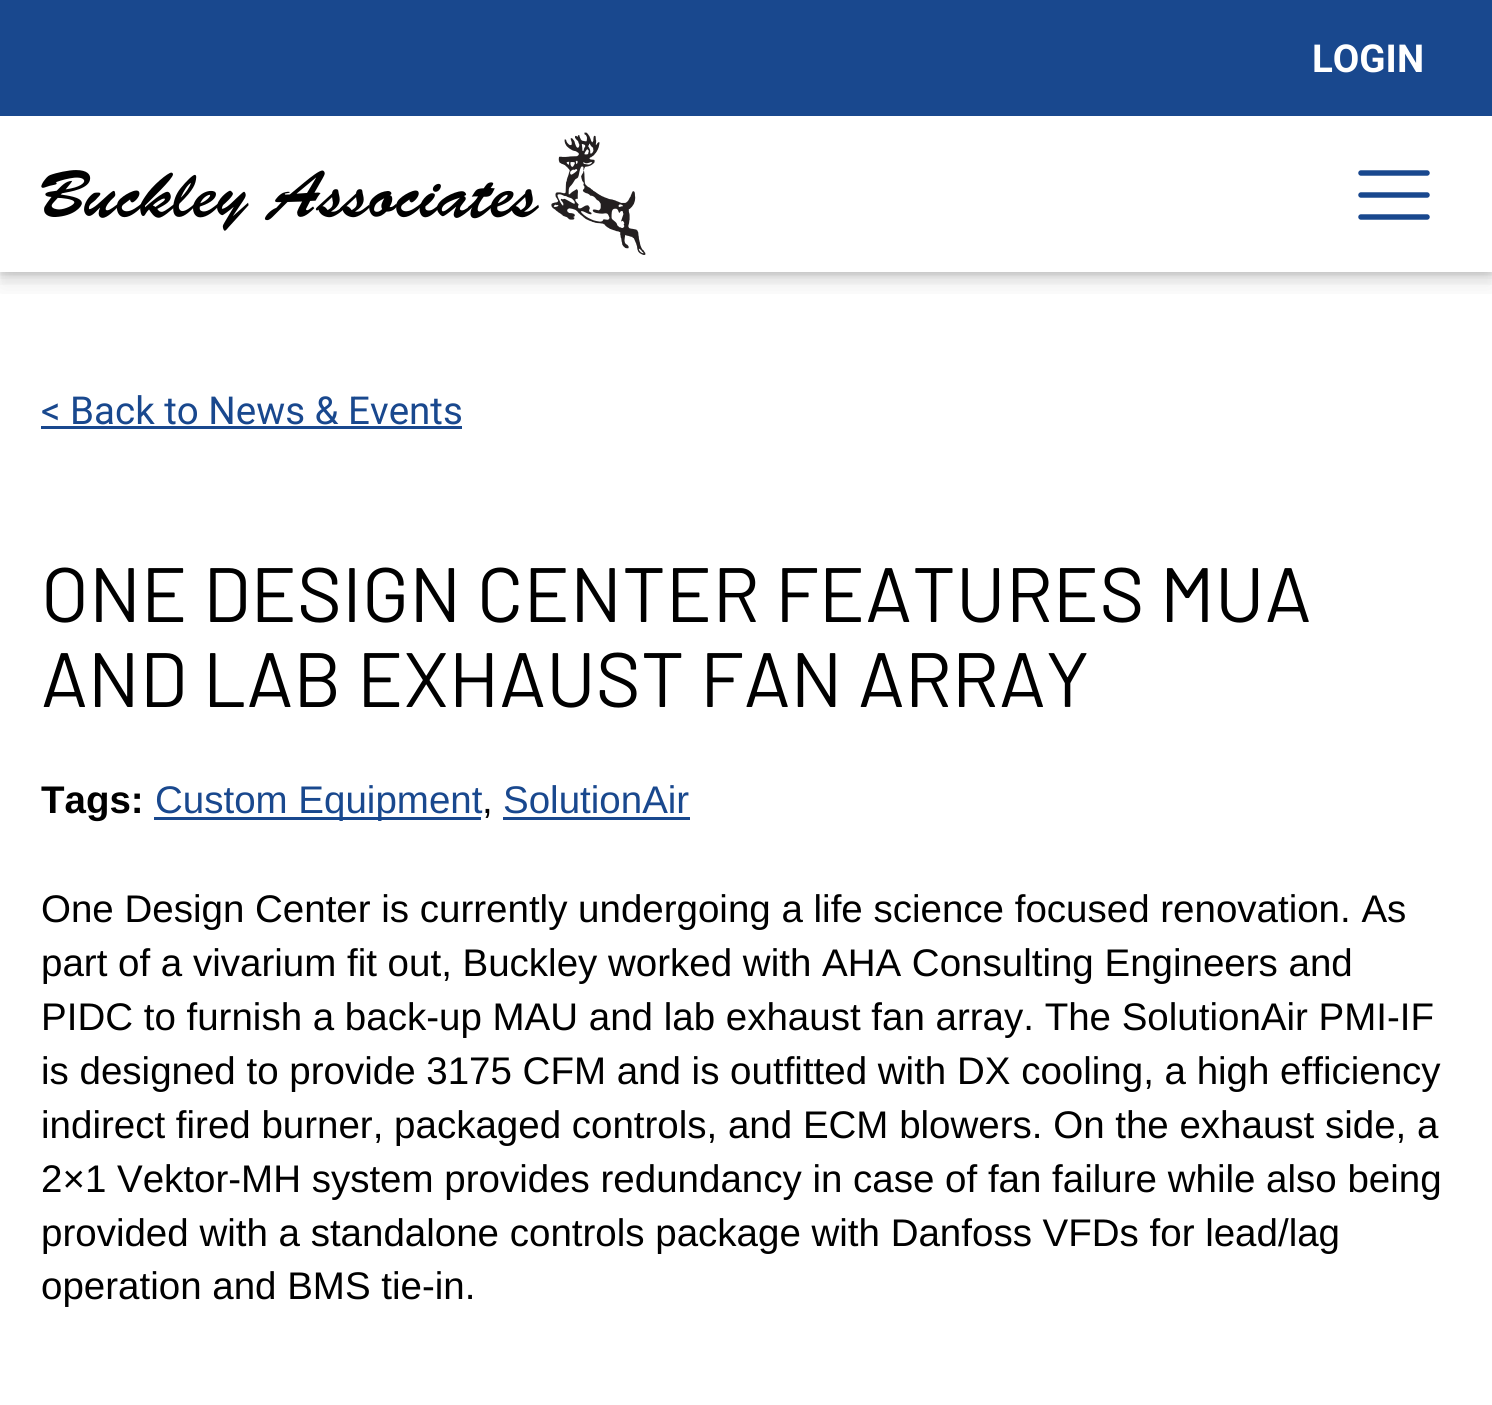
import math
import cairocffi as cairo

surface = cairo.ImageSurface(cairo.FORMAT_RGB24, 1492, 1405)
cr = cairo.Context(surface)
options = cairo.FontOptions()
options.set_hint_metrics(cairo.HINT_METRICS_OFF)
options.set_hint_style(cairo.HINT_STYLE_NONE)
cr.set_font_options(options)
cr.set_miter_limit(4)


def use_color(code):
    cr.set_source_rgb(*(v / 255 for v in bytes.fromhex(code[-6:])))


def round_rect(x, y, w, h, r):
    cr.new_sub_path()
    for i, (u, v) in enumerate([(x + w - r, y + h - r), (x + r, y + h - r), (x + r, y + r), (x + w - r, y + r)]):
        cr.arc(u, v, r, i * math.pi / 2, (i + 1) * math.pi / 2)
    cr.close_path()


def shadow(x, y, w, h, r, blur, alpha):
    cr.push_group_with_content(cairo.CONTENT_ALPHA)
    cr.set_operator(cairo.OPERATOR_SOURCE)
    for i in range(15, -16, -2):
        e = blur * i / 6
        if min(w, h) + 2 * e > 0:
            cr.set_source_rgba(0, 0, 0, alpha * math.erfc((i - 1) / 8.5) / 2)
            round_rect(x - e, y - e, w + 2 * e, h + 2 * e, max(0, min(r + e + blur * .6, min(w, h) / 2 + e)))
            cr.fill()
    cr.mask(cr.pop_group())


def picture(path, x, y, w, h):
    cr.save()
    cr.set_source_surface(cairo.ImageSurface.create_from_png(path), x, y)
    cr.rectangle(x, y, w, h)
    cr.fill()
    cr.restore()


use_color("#ffffff")
cr.paint()
cr.save()
cr.rectangle(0, 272, 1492, 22)
cr.clip()
use_color("#000000")
shadow(0, 17, 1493, 272, 0, 11, 0.06)
cr.restore()
cr.save()
cr.rectangle(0, 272, 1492, 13)
cr.clip()
use_color("#000000")
shadow(0, 11, 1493, 272, 0, 5.5, 0.06)
cr.restore()
cr.save()
cr.rectangle(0, 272, 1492, 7)
cr.clip()
use_color("#000000")
shadow(0, 6, 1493, 272, 0, 3, 0.06)
cr.restore()
cr.save()
cr.rectangle(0, 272, 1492, 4)
cr.clip()
use_color("#000000")
shadow(0, 3, 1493, 272, 0, 1.5, 0.06)
cr.restore()
use_color("#19488e")
cr.rectangle(0, 0, 1492, 116)
cr.fill()
cr.select_font_face("Roboto", cairo.FONT_SLANT_NORMAL, cairo.FONT_WEIGHT_BOLD)
cr.set_font_size(38.5)
use_color("#ffffff")
cr.move_to(1312, 72)
cr.show_text("LOGIN")
picture("img1.png", 41, 132, 605, 123)
cr.new_path()
cr.move_to(1361, 173)
cr.line_to(1427, 173)
cr.move_to(1361, 195)
cr.line_to(1427, 195)
cr.move_to(1361, 217)
cr.line_to(1427, 217)
use_color("#19488e")
cr.set_line_width(5.5)
cr.set_line_cap(cairo.LINE_CAP_ROUND)
cr.stroke()
cr.select_font_face("Roboto")
cr.move_to(41, 424)
cr.show_text("< Back to News & Events")
cr.rectangle(41, 426, 421, 3)
cr.fill()
cr.select_font_face("Barlow")
cr.set_font_size(77)
use_color("#000000")
cr.move_to(41, 622)
cr.show_text("ONE DESIGN CENTER FEATURES MUA")
cr.move_to(41, 707)
cr.show_text("AND LAB EXHAUST FAN ARRAY")
cr.select_font_face("Liberation Sans", cairo.FONT_SLANT_NORMAL, cairo.FONT_WEIGHT_BOLD)
cr.set_font_size(38.5)
cr.move_to(41, 813)
cr.show_text("Tags:")
use_color("#19488e")
cr.rectangle(154, 817, 327, 3)
cr.fill()
cr.select_font_face("Liberation Sans")
cr.move_to(155, 813)
cr.show_text("Custom Equipment")
use_color("#000000")
cr.move_to(482, 813)
cr.show_text(",")
use_color("#19488e")
cr.move_to(503, 813)
cr.show_text("SolutionAir")
cr.rectangle(503, 817, 187, 3)
cr.fill()
use_color("#000000")
cr.move_to(41, 922)
cr.show_text("One Design Center is currently undergoing a life science focused renovation. As")
cr.move_to(41, 976)
cr.show_text("part of a vivarium fit out, Buckley worked with AHA Consulting Engineers and")
cr.move_to(41, 1030)
cr.show_text("PIDC to furnish a back-up MAU and lab exhaust fan array. The SolutionAir PMI-IF")
cr.move_to(41, 1084)
cr.show_text("is designed to provide 3175 CFM and is outfitted with DX cooling, a high efficiency")
cr.move_to(41, 1138)
cr.show_text("indirect fired burner, packaged controls, and ECM blowers. On the exhaust side, a")
cr.move_to(41, 1192)
cr.show_text("2×1 Vektor-MH system provides redundancy in case of fan failure while also being")
cr.move_to(41, 1246)
cr.show_text("provided with a standalone controls package with Danfoss VFDs for lead/lag")
cr.move_to(41, 1299)
cr.show_text("operation and BMS tie-in.")
surface.write_to_png("result.png")
